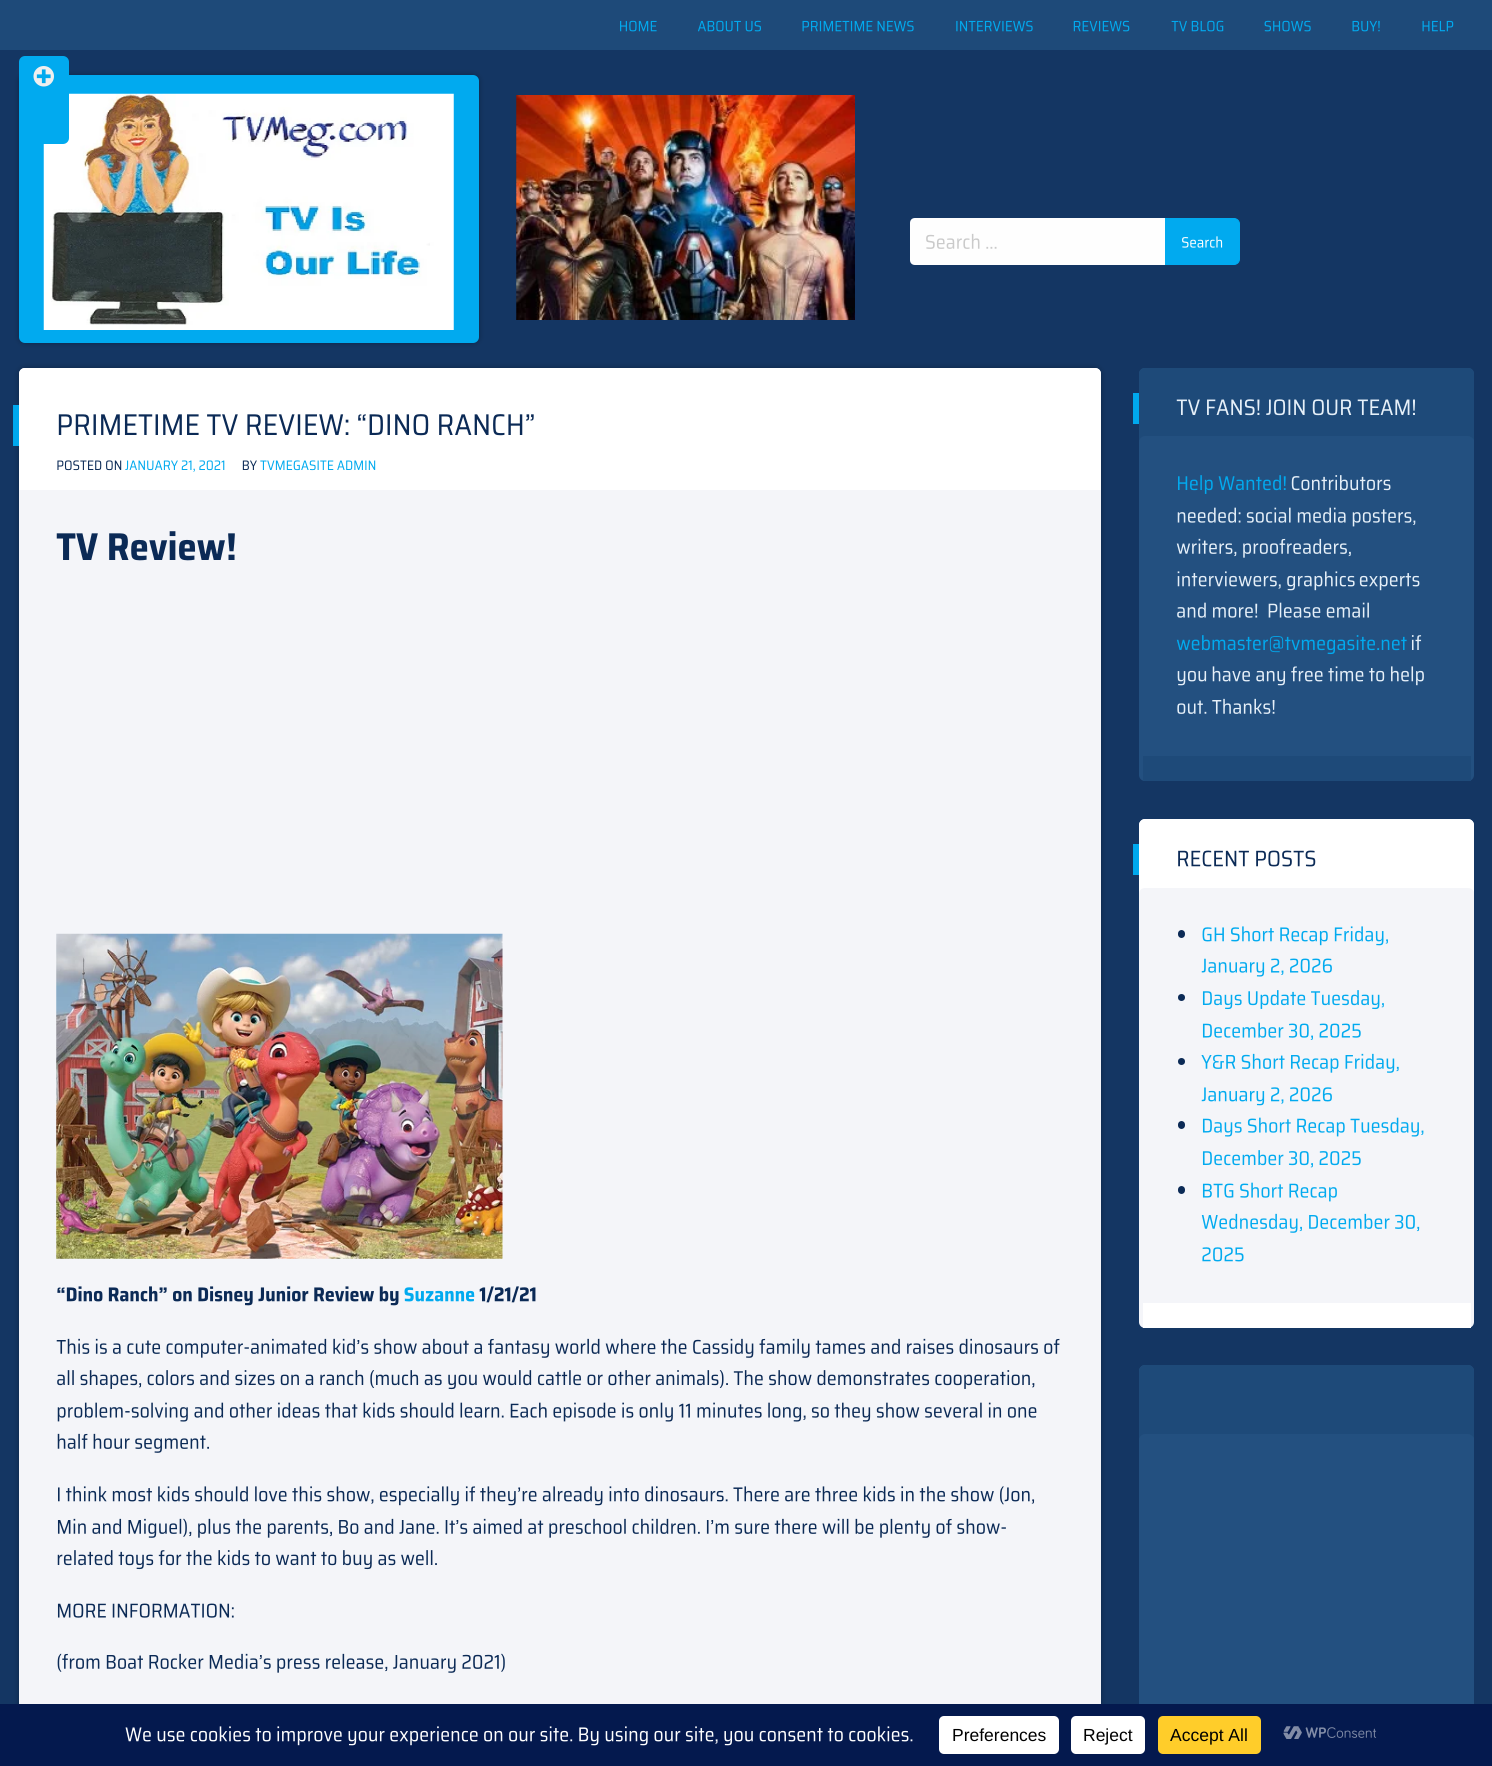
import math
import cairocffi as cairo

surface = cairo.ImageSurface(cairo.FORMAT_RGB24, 1492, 1766)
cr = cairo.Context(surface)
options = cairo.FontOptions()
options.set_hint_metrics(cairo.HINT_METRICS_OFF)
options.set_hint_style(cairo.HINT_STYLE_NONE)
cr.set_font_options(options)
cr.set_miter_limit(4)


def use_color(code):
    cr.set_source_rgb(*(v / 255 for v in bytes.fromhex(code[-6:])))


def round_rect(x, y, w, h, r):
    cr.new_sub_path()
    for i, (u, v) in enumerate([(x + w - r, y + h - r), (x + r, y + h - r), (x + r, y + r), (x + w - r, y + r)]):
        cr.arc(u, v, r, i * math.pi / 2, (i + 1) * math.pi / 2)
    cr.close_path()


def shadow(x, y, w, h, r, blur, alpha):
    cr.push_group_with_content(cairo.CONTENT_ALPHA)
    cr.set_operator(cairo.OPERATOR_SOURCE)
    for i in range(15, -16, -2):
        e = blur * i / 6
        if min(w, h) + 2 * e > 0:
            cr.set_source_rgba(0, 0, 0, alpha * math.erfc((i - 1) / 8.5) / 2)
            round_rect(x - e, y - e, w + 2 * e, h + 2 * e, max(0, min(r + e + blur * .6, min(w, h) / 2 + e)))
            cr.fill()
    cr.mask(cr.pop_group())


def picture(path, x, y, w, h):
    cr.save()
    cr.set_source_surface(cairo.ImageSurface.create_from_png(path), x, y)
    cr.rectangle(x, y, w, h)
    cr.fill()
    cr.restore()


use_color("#143663")
cr.paint()
use_color("#1e4a79")
cr.rectangle(0, 0, 1492, 50)
cr.fill()
picture("img1.png", 620, 20, 37, 12)
picture("img2.png", 698, 20, 63, 12)
picture("img3.png", 802, 20, 112, 12)
picture("img4.png", 956, 20, 77, 12)
picture("img5.png", 1073, 20, 57, 12)
picture("img6.png", 1171, 20, 53, 12)
picture("img7.png", 1264, 20, 47, 12)
picture("img8.png", 1352, 20, 28, 12)
picture("img9.png", 1422, 20, 32, 12)
use_color("#000000")
shadow(19, 75, 460, 268, 6, 3, 0.3)
use_color("#01aaef")
round_rect(19, 75, 460, 268, 6)
cr.fill()
picture("img11.png", 43, 93, 411, 237)
round_rect(19, 56, 50, 88, 6)
cr.fill()
picture("img10.png", 33, 66, 21, 21)
picture("img12.png", 516, 95, 339, 225)
use_color("#fefefe")
cr.new_path()
cr.move_to(915, 218)
cr.line_to(1165, 218)
cr.line_to(1165, 265)
cr.line_to(915, 265)
cr.curve_to(912, 265, 910, 263, 910, 260)
cr.line_to(910, 223)
cr.curve_to(910, 220, 912, 218, 915, 218)
cr.close_path()
cr.fill()
picture("img13.png", 926, 233, 71, 16)
use_color("#01aaef")
cr.new_path()
cr.move_to(1165.5, 218.5)
cr.line_to(1234, 218.5)
cr.curve_to(1237, 218.5, 1239.5, 221, 1239.5, 224)
cr.line_to(1239.5, 259)
cr.curve_to(1239.5, 262, 1237, 264.5, 1234, 264.5)
cr.line_to(1165.5, 264.5)
cr.close_path()
cr.fill_preserve()
cr.set_line_width(1)
cr.stroke()
picture("img14.png", 1182, 236, 41, 12)
use_color("#000000")
shadow(19, 368, 1082, 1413, 6, 3, 0.3)
use_color("#f4f5f9")
round_rect(19, 368, 1082, 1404, 6)
cr.fill()
use_color("#ffffff")
cr.new_path()
cr.move_to(25, 368)
cr.line_to(1095, 368)
cr.curve_to(1098.5, 368, 1101, 370.5, 1101, 374)
cr.line_to(1101, 490)
cr.line_to(19, 490)
cr.line_to(19, 374)
cr.curve_to(19, 370.5, 21.5, 368, 25, 368)
cr.close_path()
cr.fill()
use_color("#00a9ee")
cr.rectangle(13, 405, 6, 41)
cr.fill()
picture("img15.png", 58, 414, 476, 22)
picture("img16.png", 57, 460, 65, 11)
picture("img17.png", 125, 460, 100, 12)
picture("img18.png", 242, 460, 15, 10)
picture("img19.png", 260, 460, 116, 11)
picture("img20.png", 56, 531, 179, 30)
picture("img21.png", 56, 933, 447, 326)
picture("img22.png", 57, 1286, 342, 20)
picture("img23.png", 404, 1287, 71, 15)
picture("img24.png", 479, 1286, 57, 17)
picture("img25.png", 56, 1338, 1004, 20)
picture("img26.png", 57, 1370, 978, 20)
picture("img27.png", 57, 1402, 980, 20)
picture("img28.png", 57, 1433, 152, 20)
picture("img29.png", 58, 1486, 977, 20)
picture("img30.png", 57, 1518, 949, 20)
picture("img31.png", 57, 1550, 380, 20)
picture("img32.png", 57, 1603, 177, 15)
picture("img33.png", 57, 1653, 448, 20)
use_color("#235080")
round_rect(1139, 368, 335, 413, 6)
cr.fill()
use_color("#1e4a79")
cr.new_path()
cr.move_to(1145, 436)
cr.line_to(1468, 436)
cr.curve_to(1470, 436, 1473, 438, 1474, 440)
cr.line_to(1474, 374)
cr.curve_to(1474, 370, 1471, 368, 1468, 368)
cr.line_to(1145, 368)
cr.curve_to(1142, 368, 1139, 370, 1139, 374)
cr.line_to(1139, 756)
cr.line_to(1139, 442)
cr.curve_to(1139, 439, 1142, 436, 1145, 436)
cr.close_path()
cr.fill()
cr.rectangle(1143, 756, 328, 25)
cr.fill()
use_color("#00a9ee")
cr.rectangle(1133, 393, 6, 31)
cr.fill()
picture("img34.png", 1176, 399, 239, 17)
picture("img35.png", 1178, 475, 108, 19)
picture("img36.png", 1291, 475, 100, 16)
picture("img37.png", 1177, 507, 239, 20)
picture("img38.png", 1176, 538, 175, 20)
picture("img39.png", 1177, 571, 178, 20)
picture("img40.png", 1359, 573, 61, 18)
picture("img41.png", 1177, 602, 192, 16)
picture("img42.png", 1176, 635, 231, 20)
picture("img43.png", 1411, 635, 11, 15)
picture("img44.png", 1177, 670, 30, 16)
picture("img45.png", 1212, 666, 212, 20)
picture("img46.png", 1177, 698, 98, 16)
use_color("#f4f5f9")
round_rect(1139, 819, 335, 509, 6)
cr.fill()
use_color("#ffffff")
cr.new_path()
cr.move_to(1145, 888)
cr.line_to(1468, 888)
cr.curve_to(1470, 888, 1473, 889, 1474, 892)
cr.line_to(1474, 825)
cr.curve_to(1474, 822, 1471, 819, 1468, 819)
cr.line_to(1145, 819)
cr.curve_to(1142, 819, 1139, 822, 1139, 825)
cr.line_to(1139, 1302)
cr.line_to(1139, 894)
cr.curve_to(1139, 890, 1142, 888, 1145, 888)
cr.close_path()
cr.fill()
cr.rectangle(1143, 1303, 328, 25)
cr.fill()
use_color("#00a9ee")
cr.rectangle(1133, 844, 6, 31)
cr.fill()
picture("img47.png", 1178, 850, 138, 17)
use_color("#0b2a56")
round_rect(1178, 930, 7, 8, 3.5)
cr.fill()
picture("img48.png", 1202, 926, 186, 20)
picture("img49.png", 1201, 958, 131, 19)
cr.arc(1181.5, 997.5, 3.5, 0, 2 * math.pi)
cr.fill()
picture("img50.png", 1202, 990, 182, 20)
picture("img51.png", 1202, 1022, 159, 18)
cr.arc(1181.5, 1061.5, 3.5, 0, 2 * math.pi)
cr.fill()
picture("img52.png", 1201, 1053, 198, 20)
picture("img53.png", 1201, 1087, 131, 19)
round_rect(1178, 1121, 7, 8, 3.5)
cr.fill()
picture("img54.png", 1202, 1117, 222, 20)
picture("img55.png", 1202, 1150, 159, 18)
round_rect(1178, 1186, 7, 8, 3.5)
cr.fill()
picture("img56.png", 1202, 1182, 135, 20)
picture("img57.png", 1201, 1213, 219, 20)
picture("img58.png", 1202, 1247, 42, 15)
use_color("#235080")
round_rect(1139, 1365, 335, 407, 6)
cr.fill()
use_color("#1e4a79")
cr.new_path()
cr.move_to(1145, 1434)
cr.line_to(1468, 1434)
cr.curve_to(1470, 1434, 1473, 1436, 1474, 1438)
cr.line_to(1474, 1371)
cr.curve_to(1474, 1368, 1471, 1365, 1468, 1365)
cr.line_to(1145, 1365)
cr.curve_to(1142, 1365, 1139, 1368, 1139, 1371)
cr.line_to(1139, 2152)
cr.line_to(1139, 1440)
cr.curve_to(1139, 1437, 1142, 1434, 1145, 1434)
cr.close_path()
cr.fill()
use_color("#04194e")
cr.rectangle(0, 1704, 1492, 62)
cr.fill()
picture("img59.png", 125, 1726, 788, 20)
use_color("#ffffff")
round_rect(939, 1716, 120, 38, 5)
cr.fill()
cr.select_font_face("Liberation Sans")
cr.set_font_size(17.5)
use_color("#000000")
cr.move_to(952, 1741)
cr.show_text("Preferences")
use_color("#ffffff")
round_rect(1071, 1716, 74, 38, 5)
cr.fill()
use_color("#000000")
cr.move_to(1083, 1741)
cr.show_text("Reject")
use_color("#ffcd2a")
round_rect(1158, 1716, 103, 38, 5)
cr.fill()
use_color("#000000")
cr.move_to(1170, 1741)
cr.show_text("Accept All")
picture("img60.png", 1283, 1726, 94, 13)
surface.write_to_png("result.png")
